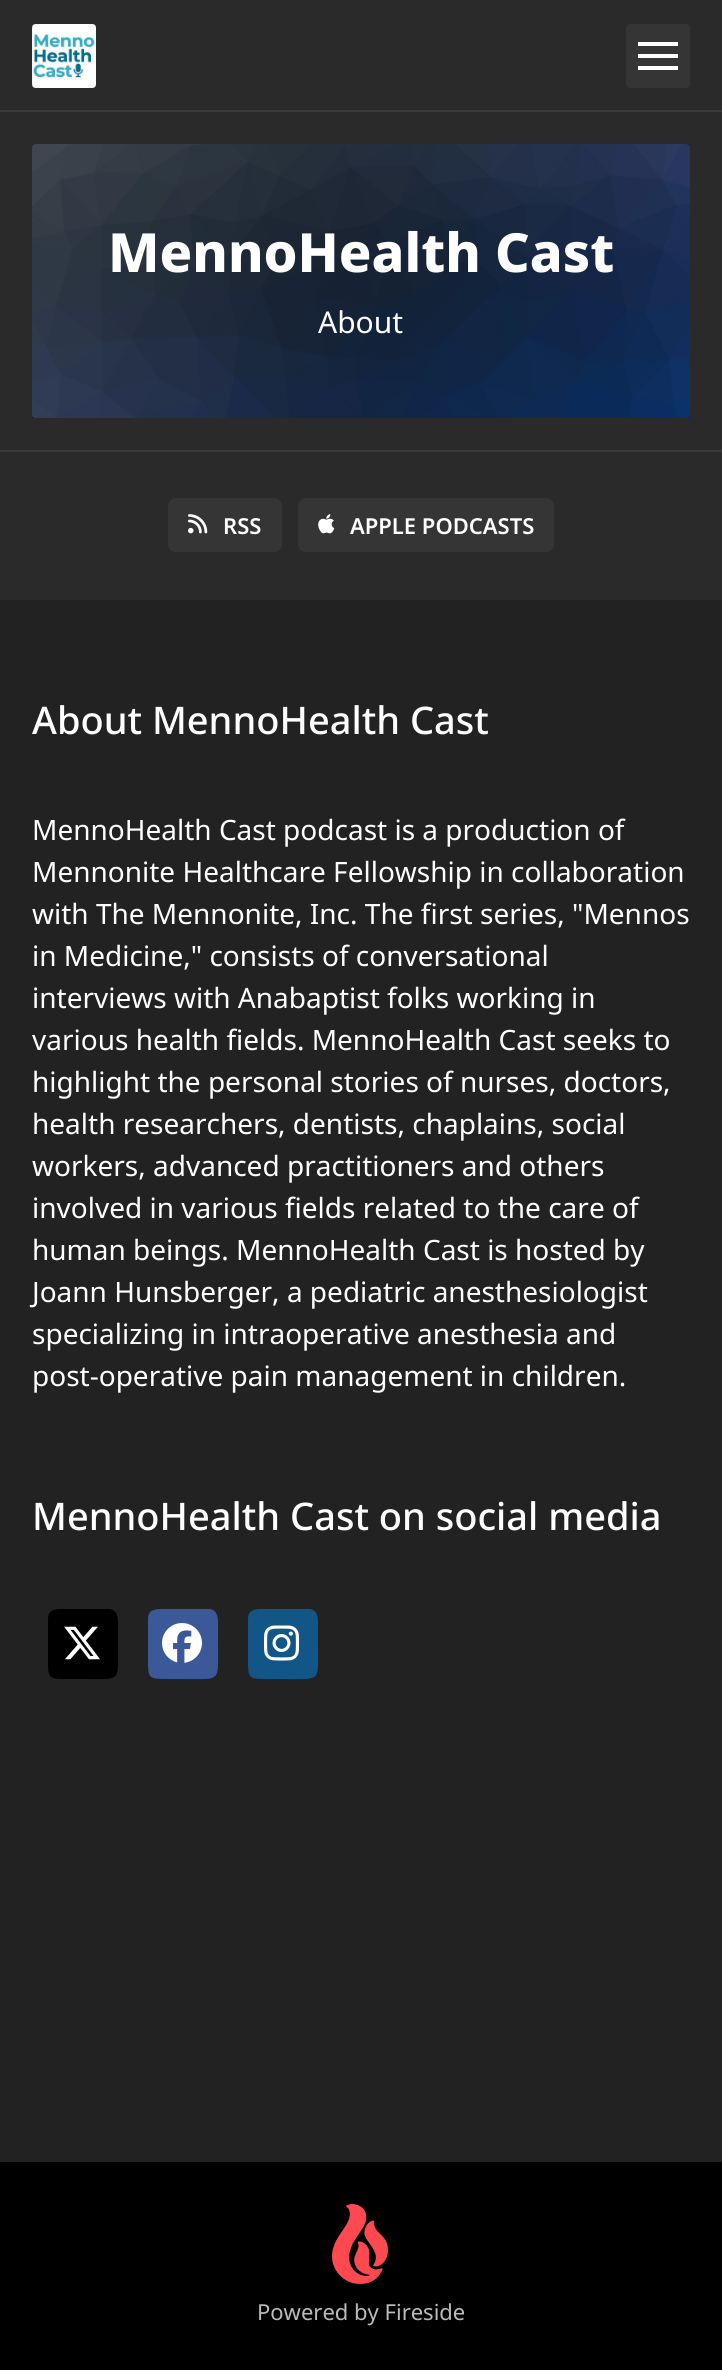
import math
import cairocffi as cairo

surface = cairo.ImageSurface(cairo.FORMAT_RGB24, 722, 2370)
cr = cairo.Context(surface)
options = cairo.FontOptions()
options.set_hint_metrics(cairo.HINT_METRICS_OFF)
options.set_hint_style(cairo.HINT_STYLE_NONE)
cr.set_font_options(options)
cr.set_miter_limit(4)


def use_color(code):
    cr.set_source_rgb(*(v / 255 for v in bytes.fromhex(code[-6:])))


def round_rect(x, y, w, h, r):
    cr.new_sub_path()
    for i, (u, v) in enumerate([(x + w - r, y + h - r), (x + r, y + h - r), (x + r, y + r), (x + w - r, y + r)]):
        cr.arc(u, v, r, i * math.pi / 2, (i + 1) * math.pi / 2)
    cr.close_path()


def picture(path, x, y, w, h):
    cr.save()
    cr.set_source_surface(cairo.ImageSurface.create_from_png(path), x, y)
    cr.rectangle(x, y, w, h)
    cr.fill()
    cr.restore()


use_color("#222222")
cr.paint()
use_color("#2a2a2a")
cr.rectangle(0, 0, 722, 110)
cr.fill()
use_color("#3b3b3b")
cr.rectangle(0, 110, 722, 2)
cr.fill()
picture("img1.png", 32, 24, 64, 64)
use_color("#353535")
round_rect(626, 24, 64, 64, 4)
cr.fill()
use_color("#ffffff")
cr.rectangle(638, 42, 40, 4)
cr.fill()
cr.rectangle(638, 54, 40, 4)
cr.fill()
cr.rectangle(638, 66, 40, 4)
cr.fill()
use_color("#2a2a2a")
cr.rectangle(0, 112, 722, 338)
cr.fill()
use_color("#222222")
cr.rectangle(32, 144, 658, 274)
cr.fill()
picture("img2.png", 32, 144, 658, 274)
cr.select_font_face("Noto Sans ExtraBold")
cr.set_font_size(54)
use_color("#ffffff")
cr.move_to(108, 272)
cr.show_text("MennoHealth Cast")
cr.select_font_face("Noto Sans")
cr.set_font_size(30)
cr.move_to(318, 333)
cr.show_text("About")
use_color("#2a2a2a")
cr.rectangle(0, 452, 722, 148)
cr.fill()
use_color("#3b3b3b")
cr.rectangle(0, 450, 722, 2)
cr.fill()
use_color("#353535")
round_rect(168, 498, 114, 54, 8)
cr.fill()
picture("img3.png", 188, 514, 20, 20)
cr.select_font_face("Noto Sans SemiBold")
cr.set_font_size(22)
use_color("#ffffff")
cr.move_to(223, 534)
cr.show_text("RSS")
use_color("#353535")
round_rect(298, 498, 256, 54, 8)
cr.fill()
picture("img4.png", 318, 514, 17, 20)
use_color("#ffffff")
cr.move_to(350, 534)
cr.show_text("APPLE PODCASTS")
cr.select_font_face("Noto Sans Medium")
cr.set_font_size(38)
cr.move_to(32, 734)
cr.show_text("About MennoHealth Cast")
cr.select_font_face("Noto Sans")
cr.set_font_size(28)
cr.move_to(32, 840)
cr.show_text("MennoHealth Cast podcast is a production of")
cr.move_to(32, 882)
cr.show_text("Mennonite Healthcare Fellowship in collaboration")
cr.move_to(32, 924)
cr.show_text("with The Mennonite, Inc. The first series, \"Mennos")
cr.move_to(32, 966)
cr.show_text("in Medicine,\" consists of conversational")
cr.move_to(32, 1008)
cr.show_text("interviews with Anabaptist folks working in")
cr.move_to(32, 1050)
cr.show_text("various health fields. MennoHealth Cast seeks to")
cr.move_to(32, 1092)
cr.show_text("highlight the personal stories of nurses, doctors,")
cr.move_to(32, 1134)
cr.show_text("health researchers, dentists, chaplains, social")
cr.move_to(32, 1176)
cr.show_text("workers, advanced practitioners and others")
cr.move_to(32, 1218)
cr.show_text("involved in various fields related to the care of")
cr.move_to(32, 1260)
cr.show_text("human beings. MennoHealth Cast is hosted by")
cr.move_to(32, 1302)
cr.show_text("Joann Hunsberger, a pediatric anesthesiologist")
cr.move_to(32, 1344)
cr.show_text("specializing in intraoperative anesthesia and")
cr.move_to(32, 1386)
cr.show_text("post-operative pain management in children.")
cr.select_font_face("Noto Sans Medium")
cr.set_font_size(38)
cr.move_to(32, 1530)
cr.show_text("MennoHealth Cast on social media")
use_color("#000000")
cr.new_path()
cr.move_to(48, 1619)
cr.curve_to(48, 1608, 58, 1609, 66, 1609)
cr.line_to(110, 1609)
cr.curve_to(119, 1611, 118, 1620, 118, 1627)
cr.line_to(118, 1644)
cr.curve_to(118, 1683, 122, 1679, 83, 1679)
cr.line_to(66, 1679)
cr.curve_to(49, 1679, 48, 1678, 48, 1661)
cr.close_path()
cr.fill()
picture("img5.png", 64, 1626, 36, 34)
use_color("#3b5998")
cr.new_path()
cr.move_to(148, 1619)
cr.curve_to(148, 1608, 158, 1609, 166, 1609)
cr.line_to(210, 1609)
cr.curve_to(219, 1611, 218, 1620, 218, 1627)
cr.line_to(218, 1644)
cr.curve_to(218, 1683, 222, 1679, 183, 1679)
cr.line_to(166, 1679)
cr.curve_to(149, 1679, 148, 1678, 148, 1661)
cr.close_path()
cr.fill()
picture("img6.png", 162, 1623, 40, 40)
use_color("#125688")
cr.new_path()
cr.move_to(248, 1619)
cr.curve_to(248, 1608, 258, 1609, 266, 1609)
cr.line_to(310, 1609)
cr.curve_to(319, 1611, 318, 1620, 318, 1627)
cr.line_to(318, 1644)
cr.curve_to(318, 1683, 322, 1679, 283, 1679)
cr.line_to(266, 1679)
cr.curve_to(249, 1679, 248, 1678, 248, 1661)
cr.close_path()
cr.fill()
picture("img7.png", 264, 1625, 35, 36)
use_color("#000000")
cr.rectangle(0, 2162, 722, 208)
cr.fill()
picture("img8.png", 332, 2204, 56, 80)
cr.select_font_face("Noto Sans")
cr.set_font_size(22)
use_color("#bbbbbb")
cr.move_to(257, 2320)
cr.show_text("Powered by Fireside")
surface.write_to_png("result.png")
